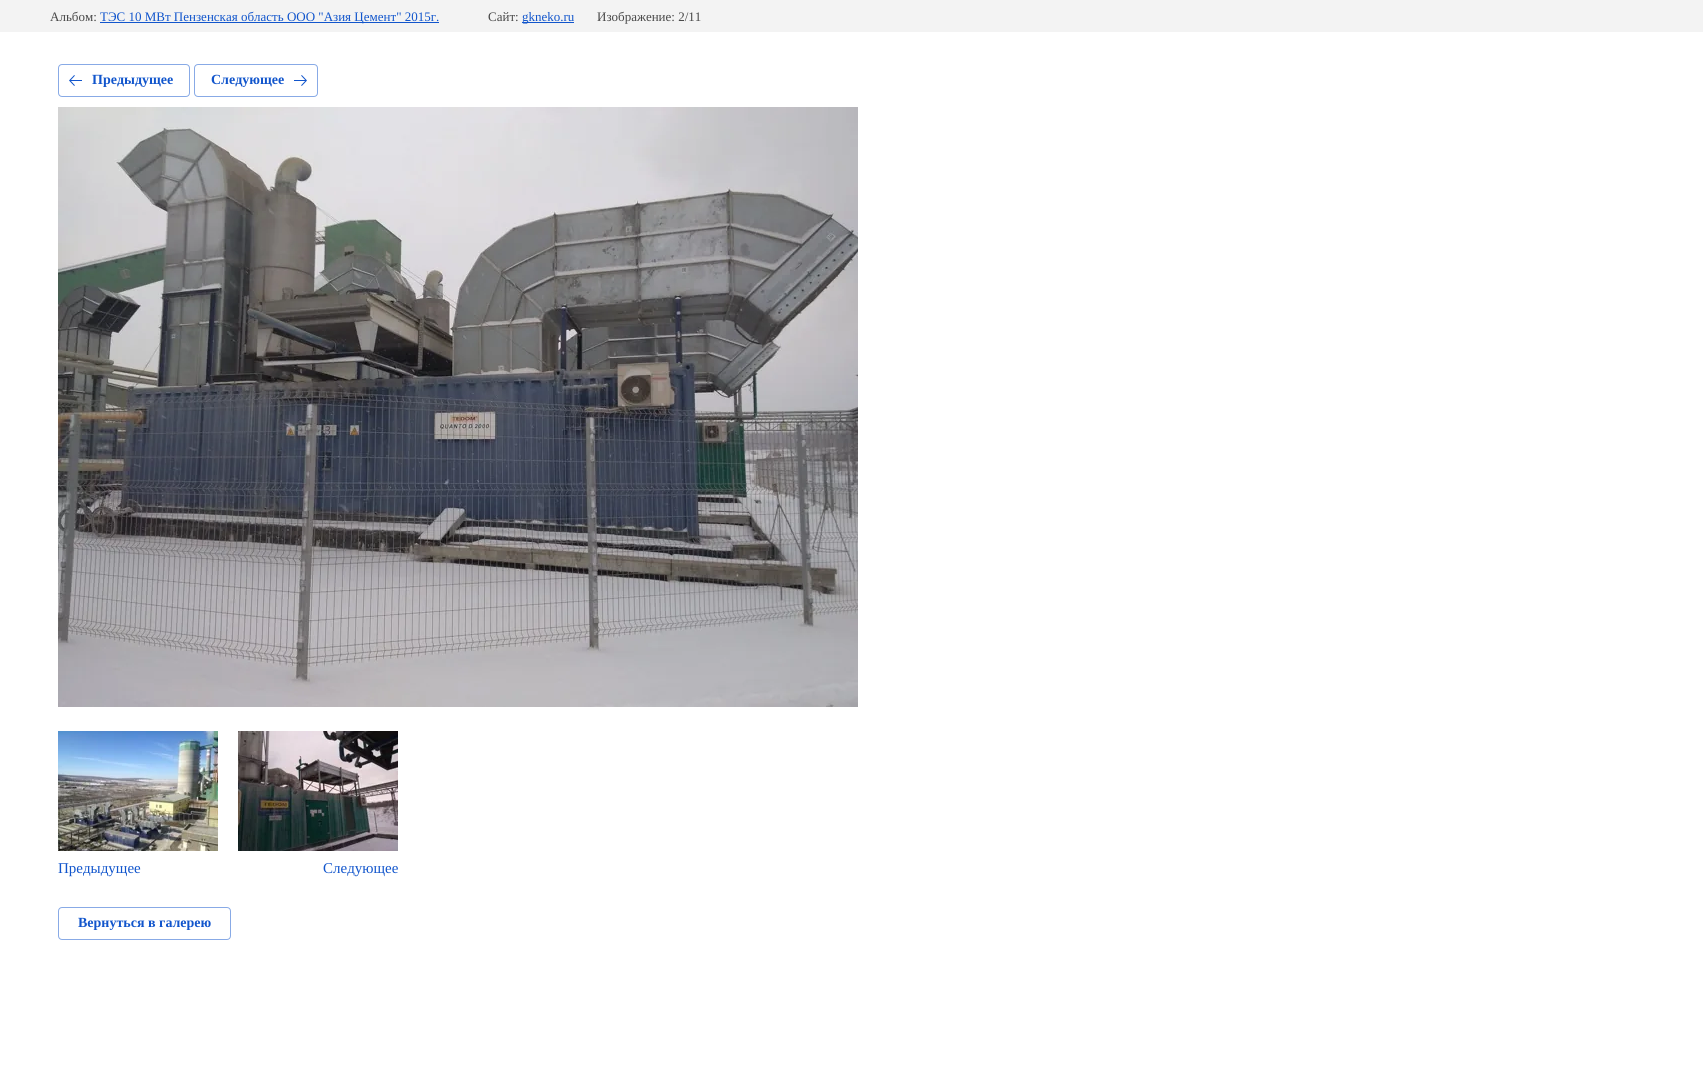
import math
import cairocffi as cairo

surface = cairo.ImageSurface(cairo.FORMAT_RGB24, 1703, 1081)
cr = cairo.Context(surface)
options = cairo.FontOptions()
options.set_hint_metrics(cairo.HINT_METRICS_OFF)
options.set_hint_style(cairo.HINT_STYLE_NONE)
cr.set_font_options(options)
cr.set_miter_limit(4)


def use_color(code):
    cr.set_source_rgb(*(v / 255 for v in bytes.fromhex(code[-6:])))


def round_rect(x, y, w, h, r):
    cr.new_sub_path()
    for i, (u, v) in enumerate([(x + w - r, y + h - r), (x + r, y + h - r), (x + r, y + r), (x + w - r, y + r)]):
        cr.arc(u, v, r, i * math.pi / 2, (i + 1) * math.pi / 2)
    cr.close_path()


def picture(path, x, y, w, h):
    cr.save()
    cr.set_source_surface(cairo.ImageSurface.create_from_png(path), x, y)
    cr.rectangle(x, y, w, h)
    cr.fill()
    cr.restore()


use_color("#ffffff")
cr.paint()
use_color("#f3f3f3")
cr.rectangle(0, 0, 1703, 32)
cr.fill()
cr.select_font_face("Liberation Serif")
cr.set_font_size(13)
use_color("#484848")
cr.move_to(50, 21)
cr.show_text("Альбом:")
use_color("#1155cc")
cr.rectangle(100, 22, 339, 1)
cr.fill()
cr.move_to(100, 21)
cr.show_text("ТЭС 10 МВт Пензенская область ООО \"Азия Цемент\" 2015г.")
use_color("#484848")
cr.move_to(488, 21)
cr.show_text("Сайт:")
use_color("#1155cc")
cr.rectangle(522, 22, 52, 1)
cr.fill()
cr.move_to(522, 21)
cr.show_text("gkneko.ru")
use_color("#484848")
cr.move_to(597, 21)
cr.show_text("Изображение: 2/11")
round_rect(58.5, 64.5, 131, 32, 3.5)
use_color("#88aae6")
cr.set_line_width(1)
cr.stroke()
picture("img1.png", 69, 75, 13, 11)
cr.select_font_face("Liberation Serif", cairo.FONT_SLANT_NORMAL, cairo.FONT_WEIGHT_BOLD)
cr.set_font_size(14)
use_color("#1155cc")
cr.move_to(92, 84)
cr.show_text("Предыдущее")
round_rect(194.5, 64.5, 123, 32, 3.5)
use_color("#88aae6")
cr.stroke()
use_color("#1155cc")
cr.move_to(211, 84)
cr.show_text("Следующее")
picture("img2.png", 294, 75, 13, 11)
picture("img3.png", 58, 107, 800, 600)
picture("img4.png", 58, 731, 160, 120)
cr.select_font_face("Liberation Serif")
cr.set_font_size(15)
cr.move_to(58, 873)
cr.show_text("Предыдущее")
picture("img5.png", 238, 731, 160, 120)
cr.move_to(323, 873)
cr.show_text("Следующее")
round_rect(58.5, 907.5, 172, 32, 3.5)
use_color("#88aae6")
cr.stroke()
cr.select_font_face("Liberation Serif", cairo.FONT_SLANT_NORMAL, cairo.FONT_WEIGHT_BOLD)
cr.set_font_size(14)
use_color("#1155cc")
cr.move_to(78, 927)
cr.show_text("Вернуться в галерею")
surface.write_to_png("result.png")
